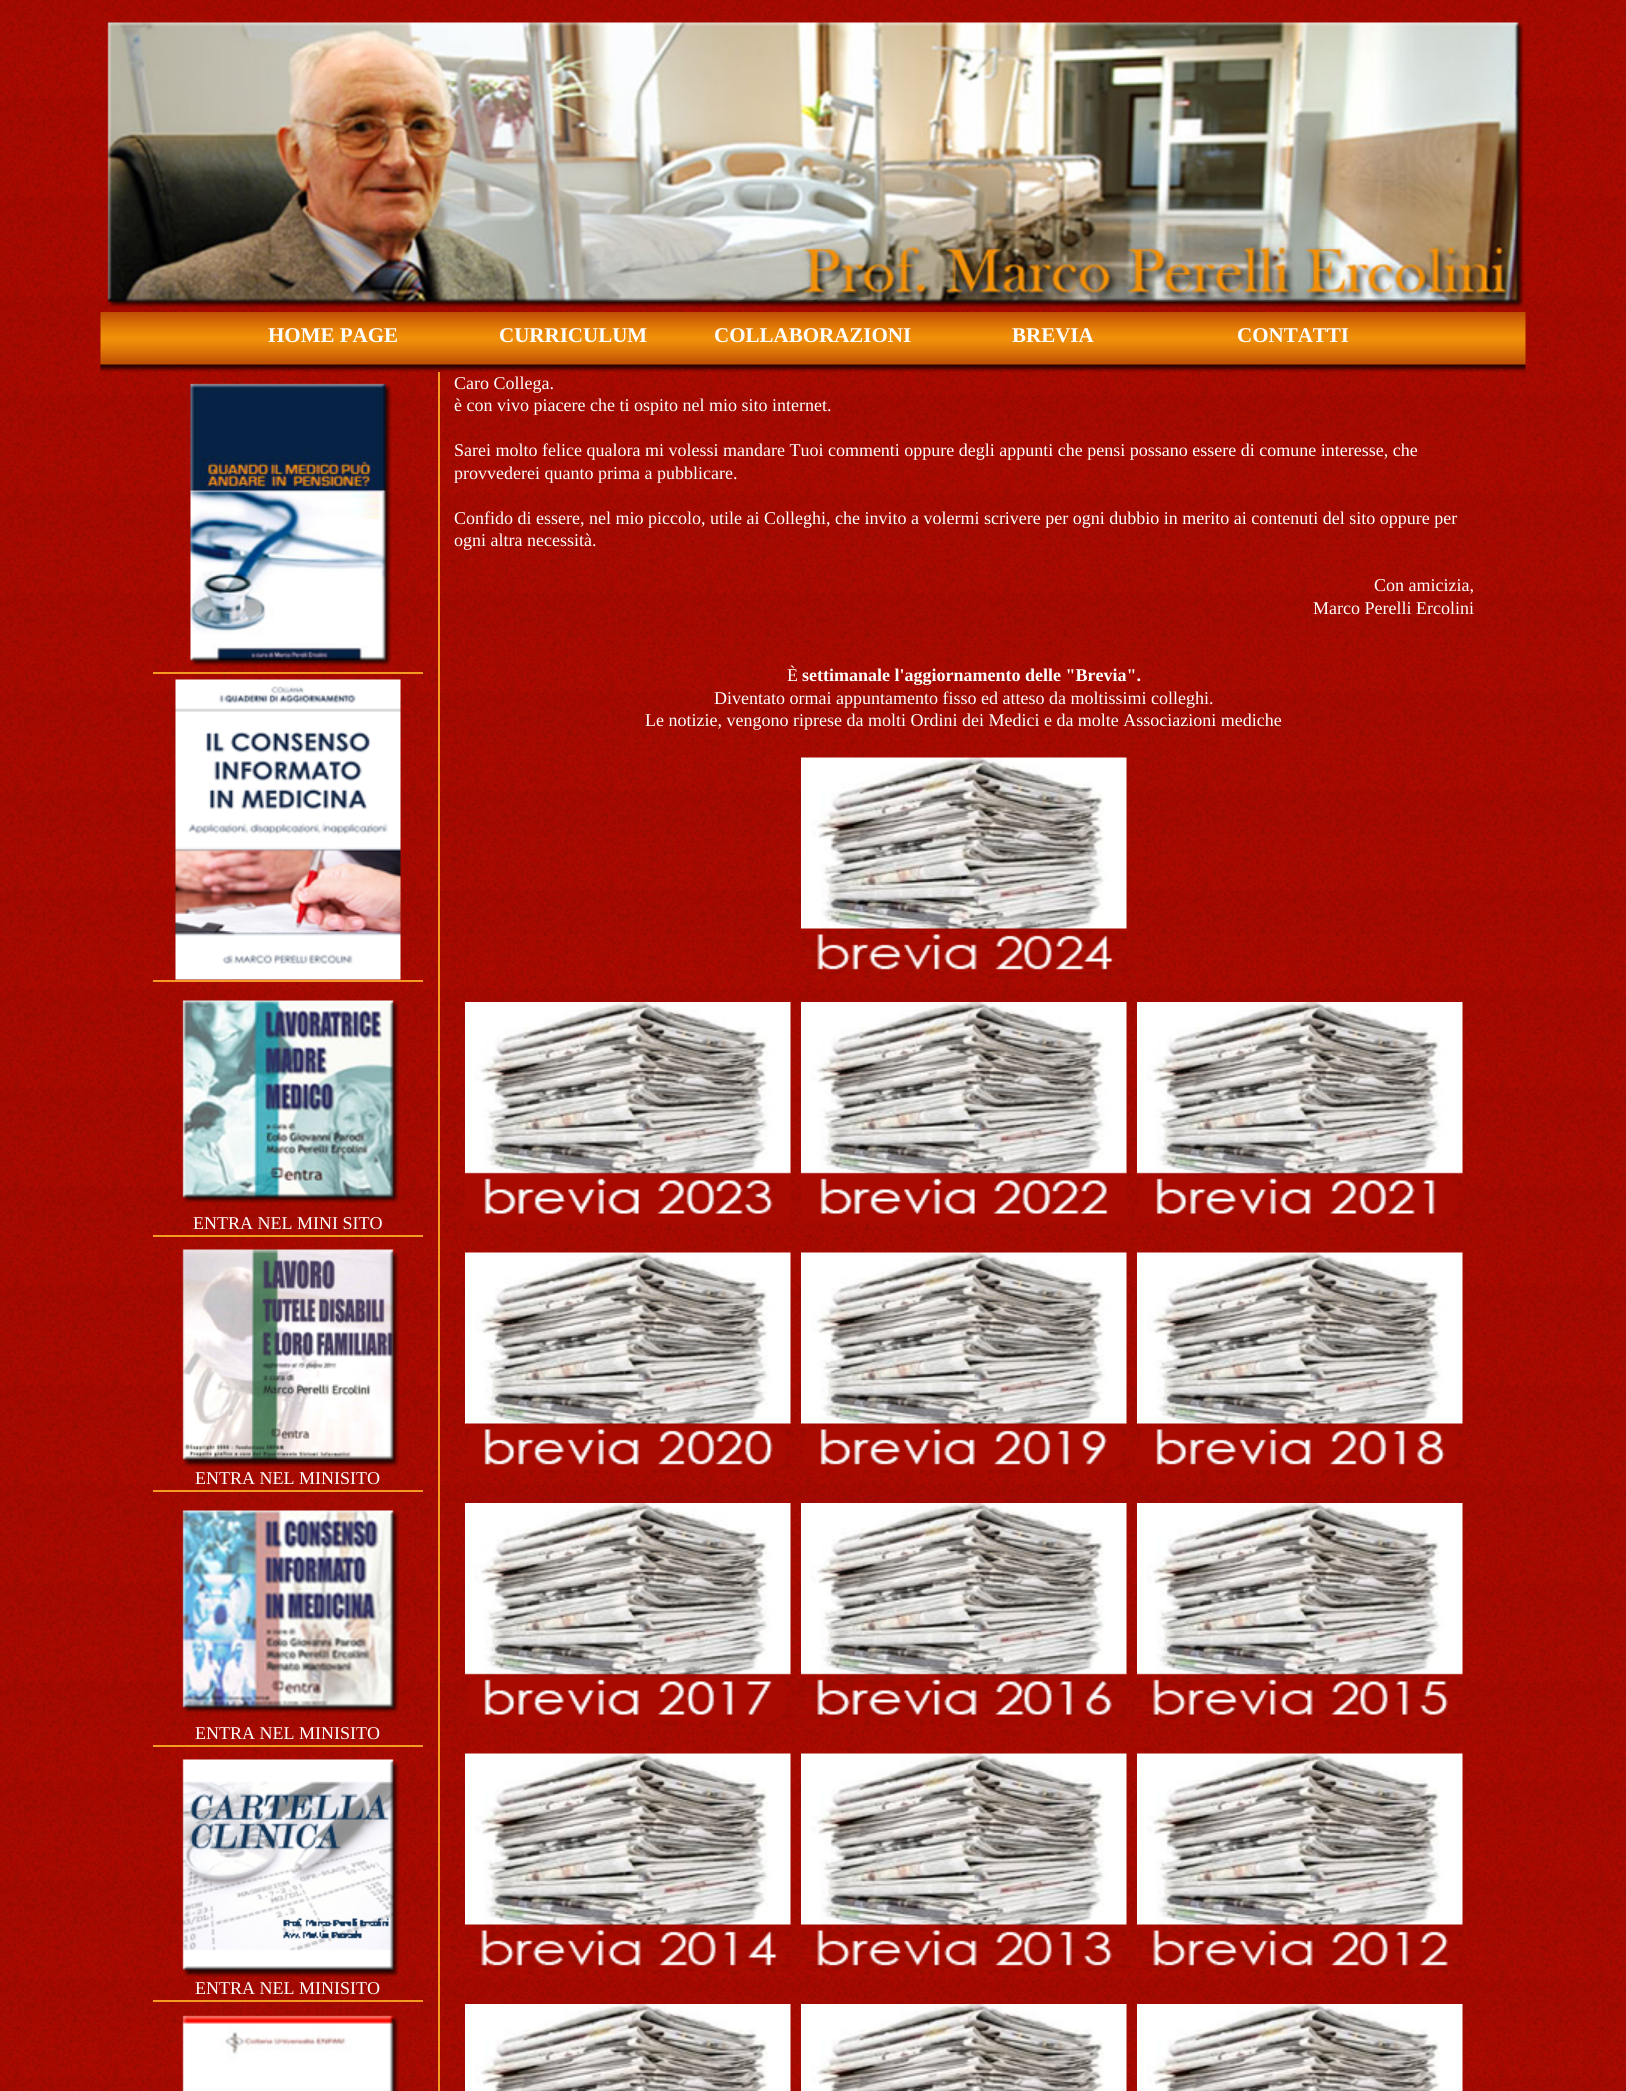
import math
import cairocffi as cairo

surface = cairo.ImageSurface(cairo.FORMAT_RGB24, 1626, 2091)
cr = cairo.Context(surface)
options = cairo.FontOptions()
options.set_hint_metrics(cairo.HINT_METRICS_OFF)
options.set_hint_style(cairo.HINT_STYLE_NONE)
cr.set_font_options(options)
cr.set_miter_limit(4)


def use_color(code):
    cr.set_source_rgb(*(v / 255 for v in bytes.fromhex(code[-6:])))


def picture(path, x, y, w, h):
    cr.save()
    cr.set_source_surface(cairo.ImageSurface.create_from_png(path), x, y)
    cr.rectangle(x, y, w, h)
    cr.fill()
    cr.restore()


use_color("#ffffff")
cr.paint()
picture("img1.png", 0, 0, 1626, 2091)
picture("img2.png", 107, 22, 1417, 286)
picture("img3.png", 100, 312, 1426, 60)
cr.select_font_face("Liberation Serif", cairo.FONT_SLANT_NORMAL, cairo.FONT_WEIGHT_BOLD)
cr.set_font_size(21)
use_color("#ffffff")
cr.move_to(268, 342)
cr.show_text("HOME PAGE")
cr.move_to(499, 342)
cr.show_text("CURRICULUM")
cr.move_to(714, 342)
cr.show_text("COLLABORAZIONI")
cr.move_to(1012, 342)
cr.show_text("BREVIA")
cr.move_to(1237, 342)
cr.show_text("CONTATTI")
cr.select_font_face("Liberation Serif")
cr.set_font_size(18)
cr.move_to(454, 389)
cr.show_text("Caro Collega.")
cr.move_to(454, 411)
cr.show_text("è con vivo piacere che ti ospito nel mio sito internet.")
cr.move_to(454, 456)
cr.show_text("Sarei molto felice qualora mi volessi mandare Tuoi commenti oppure degli appunti che pensi possano essere di comune interesse, che")
cr.move_to(454, 479)
cr.show_text("provvederei quanto prima a pubblicare.")
cr.move_to(454, 524)
cr.show_text("Confido di essere, nel mio piccolo, utile ai Colleghi, che invito a volermi scrivere per ogni dubbio in merito ai contenuti del sito oppure per")
cr.move_to(454, 546)
cr.show_text("ogni altra necessità.")
cr.move_to(1374, 591)
cr.show_text("Con amicizia,")
cr.move_to(1313, 614)
cr.show_text("Marco Perelli Ercolini")
cr.move_to(787, 681)
cr.show_text("È")
cr.select_font_face("Liberation Serif", cairo.FONT_SLANT_NORMAL, cairo.FONT_WEIGHT_BOLD)
cr.move_to(802, 681)
cr.show_text("settimanale l'aggiornamento delle \"Brevia\".")
cr.select_font_face("Liberation Serif")
cr.move_to(714, 704)
cr.show_text("Diventato ormai appuntamento fisso ed atteso da moltissimi colleghi.")
cr.move_to(645, 726)
cr.show_text("Le notizie, vengono riprese da molti Ordini dei Medici e da molte Associazioni mediche")
picture("img4.png", 801, 757, 326, 221)
picture("img5.png", 465, 1002, 326, 221)
picture("img6.png", 801, 1002, 326, 221)
picture("img7.png", 1137, 1002, 326, 221)
picture("img8.png", 465, 1252, 326, 221)
picture("img9.png", 801, 1252, 326, 221)
picture("img10.png", 1137, 1252, 326, 221)
picture("img11.png", 465, 1503, 326, 221)
picture("img12.png", 801, 1503, 326, 221)
picture("img13.png", 1137, 1503, 326, 221)
picture("img14.png", 465, 1753, 326, 221)
picture("img15.png", 801, 1753, 326, 221)
picture("img16.png", 1137, 1753, 326, 221)
picture("img17.png", 465, 2004, 326, 87)
picture("img18.png", 801, 2004, 326, 87)
picture("img19.png", 1137, 2004, 326, 87)
use_color("#f39b23")
cr.rectangle(438, 372, 2, 1719)
cr.fill()
picture("img20.png", 190, 383, 202, 283)
cr.rectangle(153, 672, 270, 2)
cr.fill()
picture("img21.png", 175, 679, 226, 301)
cr.rectangle(153, 980, 270, 2)
cr.fill()
picture("img22.png", 182, 1000, 217, 203)
use_color("#ffffff")
cr.move_to(193, 1229)
cr.show_text("ENTRA NEL MINI SITO")
use_color("#f39b23")
cr.rectangle(153, 1235, 270, 2)
cr.fill()
picture("img23.png", 182, 1249, 217, 218)
use_color("#ffffff")
cr.move_to(195, 1484)
cr.show_text("ENTRA NEL MINISITO")
use_color("#f39b23")
cr.rectangle(153, 1490, 270, 2)
cr.fill()
picture("img24.png", 182, 1510, 217, 203)
use_color("#ffffff")
cr.move_to(195, 1739)
cr.show_text("ENTRA NEL MINISITO")
use_color("#f39b23")
cr.rectangle(153, 1745, 270, 2)
cr.fill()
picture("img25.png", 182, 1759, 217, 218)
use_color("#ffffff")
cr.move_to(195, 1994)
cr.show_text("ENTRA NEL MINISITO")
use_color("#f39b23")
cr.rectangle(153, 2000, 270, 2)
cr.fill()
picture("img26.png", 182, 2015, 217, 76)
surface.write_to_png("result.png")
